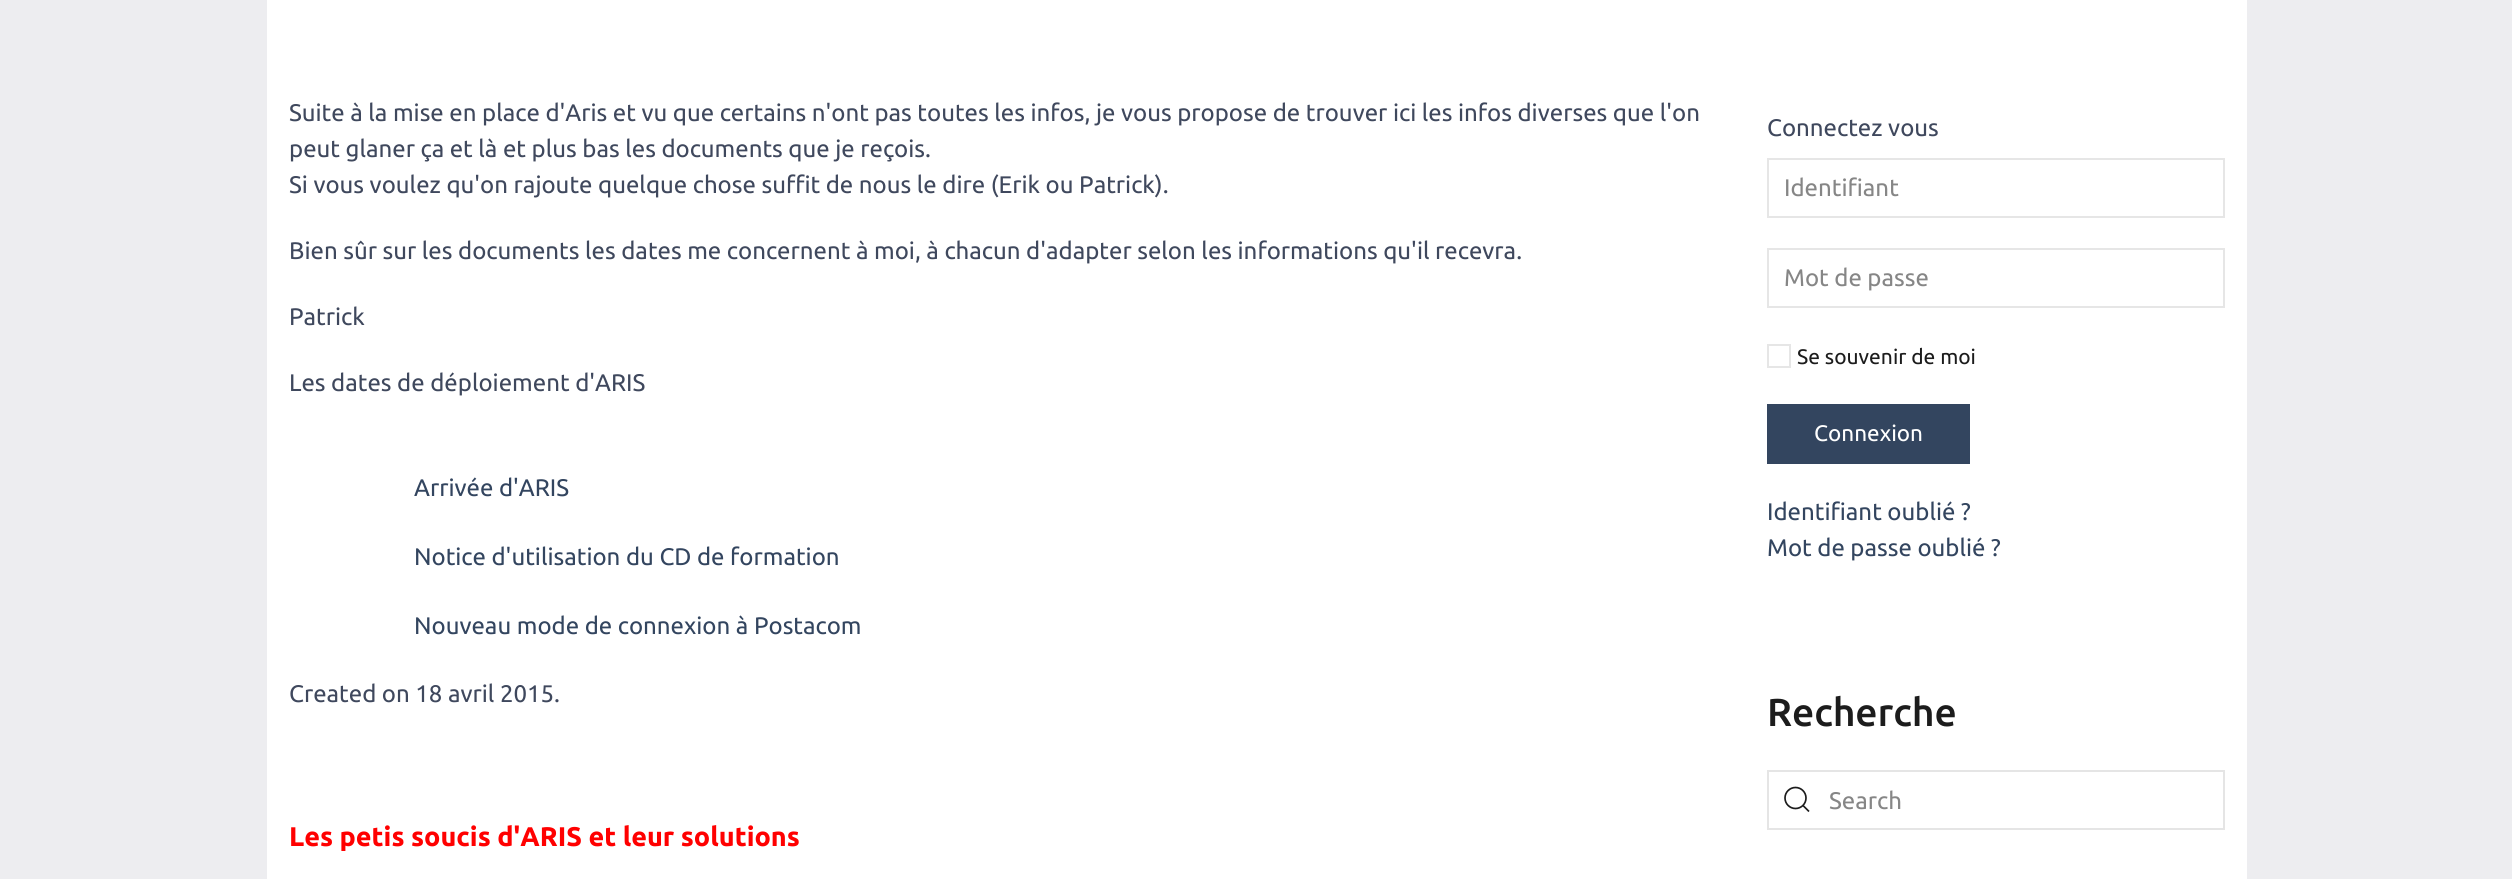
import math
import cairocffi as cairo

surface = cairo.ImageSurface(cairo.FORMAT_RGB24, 2512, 879)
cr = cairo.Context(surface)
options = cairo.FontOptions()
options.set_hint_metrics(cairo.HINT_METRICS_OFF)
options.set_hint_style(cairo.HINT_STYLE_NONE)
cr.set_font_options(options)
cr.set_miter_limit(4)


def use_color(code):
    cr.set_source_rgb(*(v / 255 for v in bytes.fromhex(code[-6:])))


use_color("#ededf0")
cr.paint()
use_color("#ffffff")
cr.rectangle(267, 0, 1980, 879)
cr.fill()
cr.select_font_face("Ubuntu")
cr.set_font_size(24)
use_color("#3f485d")
cr.move_to(289, 121)
cr.show_text("Suite à la mise en place d'Aris et vu que certains n'ont pas toutes les infos, je vous propose de trouver ici les infos diverses que l'on")
cr.move_to(289, 157)
cr.show_text("peut glaner ça et là et plus bas les documents que je reçois.")
cr.move_to(289, 193)
cr.show_text("Si vous voulez qu'on rajoute quelque chose suffit de nous le dire (Erik ou Patrick).")
cr.move_to(289, 259)
cr.show_text("Bien sûr sur les documents les dates me concernent à moi, à chacun d'adapter selon les informations qu'il recevra.")
cr.move_to(289, 325)
cr.show_text("Patrick")
cr.move_to(289, 391)
cr.show_text("Les dates de déploiement d'ARIS")
use_color("#33455f")
cr.move_to(414, 496)
cr.show_text("Arrivée d'ARIS")
cr.move_to(414, 565)
cr.show_text("Notice d'utilisation du CD de formation")
cr.move_to(414, 634)
cr.show_text("Nouveau mode de connexion à Postacom")
use_color("#3f485d")
cr.move_to(289, 702)
cr.show_text("Created on 18 avril 2015.")
cr.select_font_face("Ubuntu", cairo.FONT_SLANT_NORMAL, cairo.FONT_WEIGHT_BOLD)
cr.set_font_size(27)
use_color("#ff0000")
cr.move_to(289, 846)
cr.show_text("Les petis soucis d'ARIS et leur solutions")
cr.select_font_face("Ubuntu")
cr.set_font_size(24)
use_color("#3f485d")
cr.move_to(1767, 136)
cr.show_text("Connectez vous")
cr.rectangle(1768, 159, 456, 58)
use_color("#e6e6e6")
cr.stroke()
use_color("#868686")
cr.move_to(1784, 196)
cr.show_text("Identifiant")
cr.rectangle(1768, 249, 456, 58)
use_color("#e6e6e6")
cr.stroke()
use_color("#868686")
cr.move_to(1784, 286)
cr.show_text("Mot de passe")
cr.rectangle(1768, 345, 22, 22)
use_color("#e6e6e6")
cr.stroke()
cr.set_font_size(21)
use_color("#1c1c1c")
cr.move_to(1797, 364)
cr.show_text("Se souvenir de moi")
use_color("#33455f")
cr.rectangle(1767, 404, 203, 60)
cr.fill()
cr.set_font_size(22.5)
use_color("#ffffff")
cr.move_to(1814, 441)
cr.show_text("Connexion")
cr.set_font_size(24)
use_color("#33455f")
cr.move_to(1767, 520)
cr.show_text("Identifiant oublié ?")
cr.move_to(1767, 556)
cr.show_text("Mot de passe oublié ?")
cr.select_font_face("Ubuntu Medium")
cr.set_font_size(39)
use_color("#1c1c1c")
cr.move_to(1767, 726)
cr.show_text("Recherche")
cr.rectangle(1768, 771, 456, 58)
use_color("#e5e5e5")
cr.stroke()
cr.arc(1795.5, 798, 10.5, 0, 2 * math.pi)
use_color("#1c1c1c")
cr.set_line_width(1.7)
cr.stroke()
cr.new_path()
cr.move_to(1803, 805.5)
cr.line_to(1809, 811.5)
cr.close_path()
cr.stroke()
cr.select_font_face("Ubuntu")
cr.set_font_size(24)
use_color("#868686")
cr.move_to(1829, 809)
cr.show_text("Search")
surface.write_to_png("result.png")
